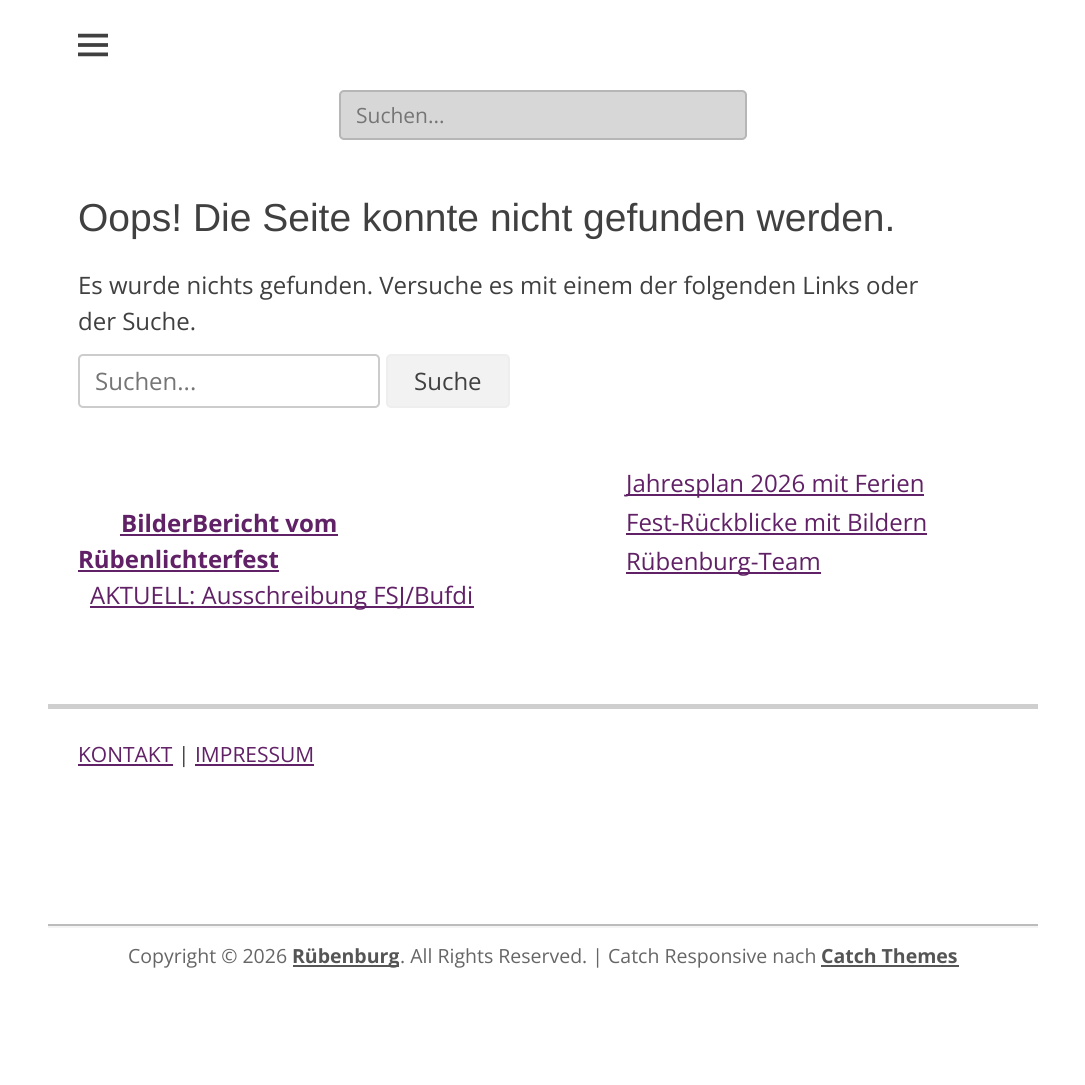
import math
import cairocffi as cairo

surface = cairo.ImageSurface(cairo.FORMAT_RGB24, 1085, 1085)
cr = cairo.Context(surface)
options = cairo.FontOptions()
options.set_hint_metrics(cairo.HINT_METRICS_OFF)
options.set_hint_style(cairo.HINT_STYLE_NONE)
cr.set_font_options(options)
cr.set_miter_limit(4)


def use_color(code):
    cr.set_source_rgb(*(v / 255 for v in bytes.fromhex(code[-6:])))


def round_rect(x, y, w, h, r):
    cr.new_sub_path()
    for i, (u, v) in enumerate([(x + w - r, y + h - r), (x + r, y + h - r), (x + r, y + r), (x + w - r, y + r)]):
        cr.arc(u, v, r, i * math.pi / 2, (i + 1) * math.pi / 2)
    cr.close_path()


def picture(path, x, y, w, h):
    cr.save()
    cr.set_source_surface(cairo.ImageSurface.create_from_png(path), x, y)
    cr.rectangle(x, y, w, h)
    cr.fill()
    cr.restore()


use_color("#ffffff")
cr.paint()
picture("img1.png", 78, 33, 30, 24)
use_color("#d7d7d7")
round_rect(340, 91, 406, 48, 4)
cr.fill_preserve()
use_color("#b6b6b6")
cr.stroke()
cr.select_font_face("Open Sans")
cr.set_font_size(21)
use_color("#757575")
cr.move_to(356, 123)
cr.show_text("Suchen...")
cr.select_font_face("Liberation Sans")
cr.set_font_size(39)
use_color("#404040")
cr.move_to(78, 231)
cr.show_text("Oops! Die Seite konnte nicht gefunden werden.")
cr.select_font_face("Open Sans")
cr.set_font_size(24)
cr.move_to(78, 294)
cr.show_text("Es wurde nichts gefunden. Versuche es mit einem der folgenden Links oder")
cr.move_to(78, 330)
cr.show_text("der Suche.")
round_rect(79, 355, 300, 52, 4)
use_color("#cccccc")
cr.stroke()
use_color("#757575")
cr.move_to(95, 390)
cr.show_text("Suchen...")
use_color("#f2f2f2")
round_rect(387, 355, 122, 52, 4)
cr.fill_preserve()
use_color("#eeeeee")
cr.stroke()
use_color("#404040")
cr.move_to(414, 390)
cr.show_text("Suche")
cr.select_font_face("Open Sans", cairo.FONT_SLANT_NORMAL, cairo.FONT_WEIGHT_BOLD)
use_color("#612166")
cr.move_to(121, 532)
cr.show_text("BilderBericht vom")
cr.rectangle(120, 534, 218, 2)
cr.fill()
cr.move_to(78, 568)
cr.show_text("Rübenlichterfest")
cr.rectangle(78, 570, 201, 2)
cr.fill()
cr.rectangle(90, 606, 384, 2)
cr.fill()
cr.select_font_face("Open Sans")
cr.move_to(90, 604)
cr.show_text("AKTUELL: Ausschreibung FSJ/Bufdi")
cr.rectangle(626, 494, 298, 2)
cr.fill()
cr.move_to(626, 492)
cr.show_text("Jahresplan 2026 mit Ferien")
cr.move_to(626, 531)
cr.show_text("Fest-Rückblicke mit Bildern")
cr.rectangle(626, 533, 301, 2)
cr.fill()
cr.rectangle(626, 572, 195, 2)
cr.fill()
cr.move_to(626, 570)
cr.show_text("Rübenburg-Team")
use_color("#cfcfcf")
cr.rectangle(48, 704, 990, 5)
cr.fill()
use_color("#bcbcbc")
cr.rectangle(48, 924, 990, 2)
cr.fill()
cr.set_font_size(21)
use_color("#612166")
cr.move_to(78, 762)
cr.show_text("KONTAKT")
cr.rectangle(78, 764, 95, 2)
cr.fill()
use_color("#404040")
cr.move_to(178, 762)
cr.show_text("|")
use_color("#612166")
cr.move_to(195, 762)
cr.show_text("IMPRESSUM")
cr.rectangle(195, 764, 119, 2)
cr.fill()
use_color("#f4f4f4")
cr.rectangle(48, 926, 990, 2)
cr.fill()
cr.set_font_size(19.5)
use_color("#666666")
cr.move_to(128, 963)
cr.show_text("Copyright © 2026")
use_color("#555555")
cr.rectangle(293, 965, 106, 2)
cr.fill()
cr.select_font_face("Open Sans", cairo.FONT_SLANT_NORMAL, cairo.FONT_WEIGHT_BOLD)
cr.move_to(292, 963)
cr.show_text("Rübenburg")
cr.select_font_face("Open Sans")
use_color("#666666")
cr.move_to(400, 963)
cr.show_text(". All Rights Reserved. | Catch Responsive nach")
cr.select_font_face("Open Sans", cairo.FONT_SLANT_NORMAL, cairo.FONT_WEIGHT_BOLD)
use_color("#555555")
cr.move_to(821, 963)
cr.show_text("Catch Themes")
cr.rectangle(821, 965, 138, 2)
cr.fill()
surface.write_to_png("result.png")
